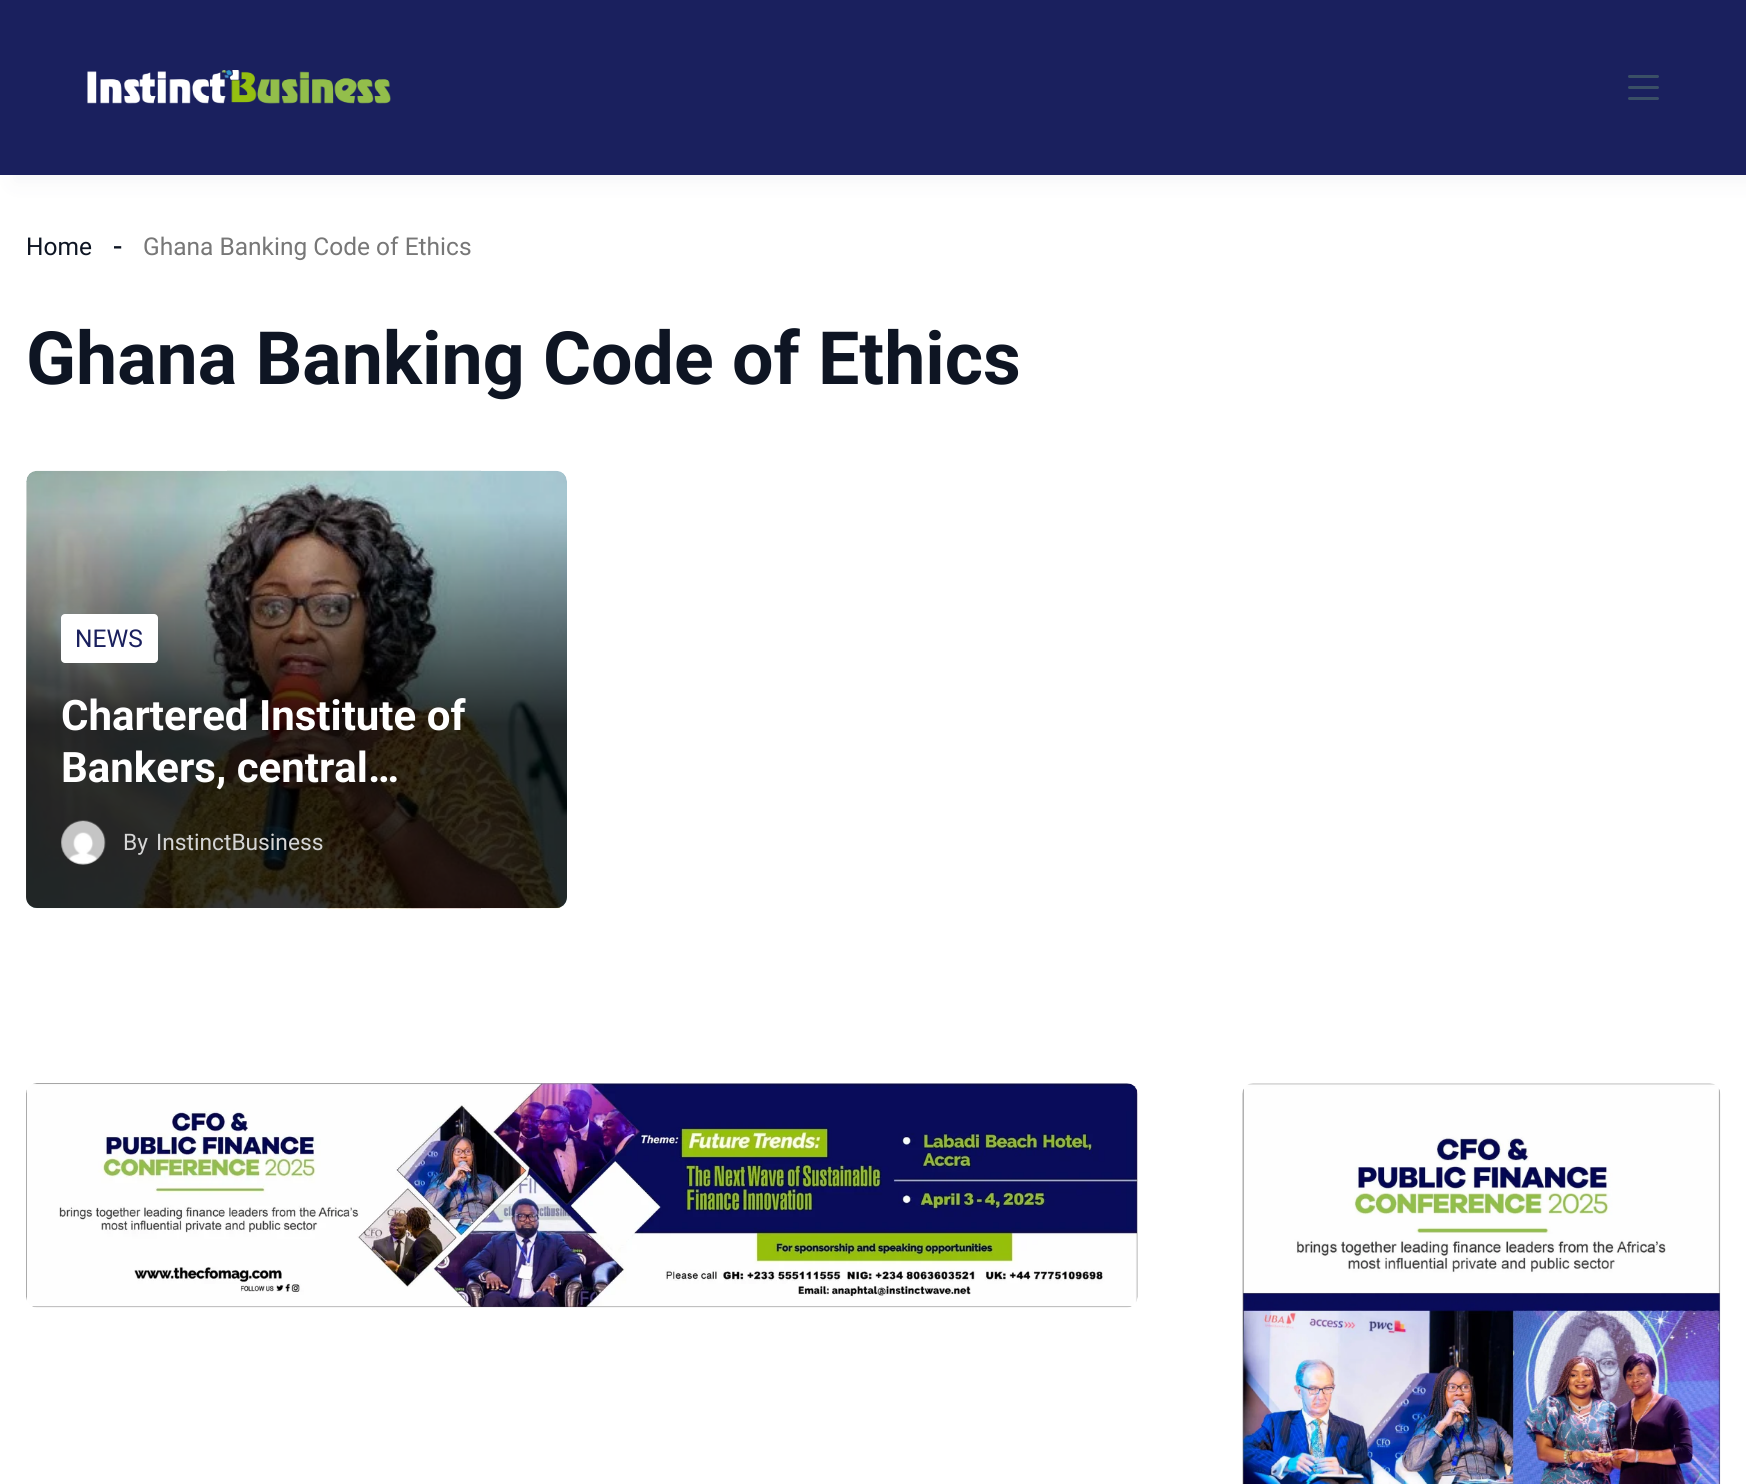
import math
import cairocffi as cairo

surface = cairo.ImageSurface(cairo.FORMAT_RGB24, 1746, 1484)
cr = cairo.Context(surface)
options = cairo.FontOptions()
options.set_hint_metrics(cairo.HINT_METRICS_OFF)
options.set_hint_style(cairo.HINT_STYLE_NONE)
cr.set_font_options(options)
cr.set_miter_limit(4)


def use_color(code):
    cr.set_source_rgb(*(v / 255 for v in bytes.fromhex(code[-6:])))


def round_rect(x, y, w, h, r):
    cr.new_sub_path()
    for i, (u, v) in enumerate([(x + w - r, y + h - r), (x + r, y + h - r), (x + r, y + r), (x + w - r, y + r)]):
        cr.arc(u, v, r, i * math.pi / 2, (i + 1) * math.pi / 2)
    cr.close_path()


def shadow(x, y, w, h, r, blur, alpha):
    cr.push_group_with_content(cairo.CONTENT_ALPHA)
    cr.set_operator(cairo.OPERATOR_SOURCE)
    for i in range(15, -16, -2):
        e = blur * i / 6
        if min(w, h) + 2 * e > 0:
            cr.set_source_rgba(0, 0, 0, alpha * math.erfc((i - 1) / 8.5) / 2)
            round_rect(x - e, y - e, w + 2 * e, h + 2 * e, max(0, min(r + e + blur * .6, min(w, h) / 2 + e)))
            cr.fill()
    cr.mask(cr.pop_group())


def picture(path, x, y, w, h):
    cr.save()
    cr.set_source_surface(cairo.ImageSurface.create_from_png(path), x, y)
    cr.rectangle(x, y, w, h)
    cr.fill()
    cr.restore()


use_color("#ffffff")
cr.paint()
use_color("#2c3e50")
shadow(14, 4, 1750, 178, 0, 10.5, 0.05)
use_color("#1a205e")
cr.rectangle(0, 0, 1746, 175)
cr.fill()
picture("img1.png", 87, 70, 304, 34)
use_color("#3a4f66")
round_rect(1628, 75, 31, 3, 1.5)
cr.fill()
round_rect(1628, 86, 31, 3, 1.5)
cr.fill()
round_rect(1628, 97, 31, 3, 1.5)
cr.fill()
cr.select_font_face("Roboto")
cr.set_font_size(24.5)
use_color("#0e1523")
cr.move_to(26, 255)
cr.show_text("Home")
cr.save()
cr.rectangle(114, 228, 9, 36)
cr.clip()
cr.set_font_size(32)
cr.move_to(113, 257)
cr.show_text("-")
cr.restore()
use_color("#777777")
cr.move_to(143, 255)
cr.show_text("Ghana Banking Code of Ethics")
cr.select_font_face("Roboto", cairo.FONT_SLANT_NORMAL, cairo.FONT_WEIGHT_BOLD)
cr.set_font_size(73.5)
use_color("#0e1523")
cr.move_to(26, 384)
cr.show_text("Ghana Banking Code of Ethics")
picture("img2.png", 26, 470, 541, 439)
gradient = cairo.LinearGradient(297, 471, 297, 908)
gradient.add_color_stop_rgba(0.09, 0, 0, 0, 0)
gradient.add_color_stop_rgba(0.58, 0, 0, 0, 0.8)
cr.set_source(gradient)
round_rect(26, 471, 541, 437, 11)
cr.fill()
use_color("#ffffff")
round_rect(61, 614, 97, 49, 4)
cr.fill()
cr.select_font_face("Roboto")
cr.set_font_size(24.5)
use_color("#1a205e")
cr.move_to(75, 647)
cr.show_text("NEWS")
cr.select_font_face("Roboto", cairo.FONT_SLANT_NORMAL, cairo.FONT_WEIGHT_BOLD)
cr.set_font_size(42)
use_color("#ffffff")
cr.move_to(61, 730)
cr.show_text("Chartered Institute of")
cr.move_to(61, 782)
cr.show_text("Bankers, central…")
picture("img3.png", 61, 820, 45, 45)
cr.select_font_face("Roboto")
cr.set_font_size(22.75)
use_color("#d5d5d5")
cr.move_to(123, 850)
cr.show_text("By")
cr.move_to(156, 850)
cr.show_text("InstinctBusiness")
picture("img4.png", 26, 1083, 1112, 225)
picture("img5.png", 1242, 1083, 479, 401)
surface.write_to_png("result.png")
